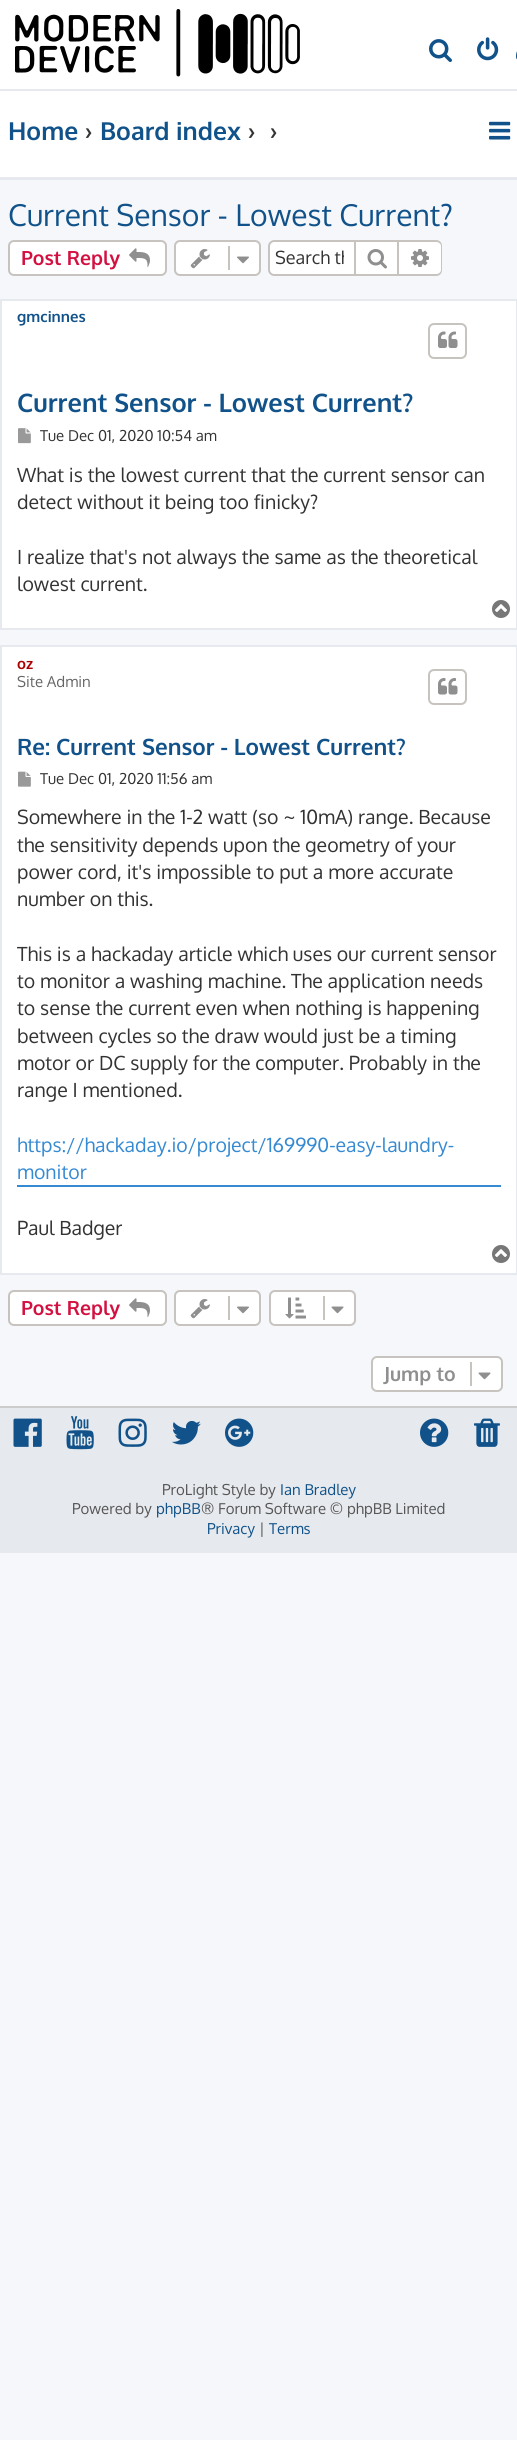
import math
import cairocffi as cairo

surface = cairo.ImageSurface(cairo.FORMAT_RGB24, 517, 2440)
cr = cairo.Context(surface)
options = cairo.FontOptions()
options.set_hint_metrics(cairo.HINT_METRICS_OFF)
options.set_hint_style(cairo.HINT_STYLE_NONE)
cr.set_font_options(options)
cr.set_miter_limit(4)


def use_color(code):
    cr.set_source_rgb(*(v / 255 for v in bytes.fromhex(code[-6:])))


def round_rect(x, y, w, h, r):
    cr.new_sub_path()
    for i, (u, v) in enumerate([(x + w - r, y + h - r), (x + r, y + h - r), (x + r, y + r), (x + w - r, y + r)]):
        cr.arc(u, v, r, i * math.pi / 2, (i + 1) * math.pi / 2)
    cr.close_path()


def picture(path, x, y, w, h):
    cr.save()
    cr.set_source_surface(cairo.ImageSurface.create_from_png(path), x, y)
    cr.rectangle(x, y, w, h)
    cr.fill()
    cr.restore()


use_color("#f5f7fa")
cr.paint()
use_color("#ffffff")
cr.rectangle(0, 0, 517, 89)
cr.fill()
use_color("#e6e9ed")
cr.rectangle(0, 89, 517, 2)
cr.fill()
picture("img1.png", 15, 9, 285, 68)
picture("img2.png", 429, 39, 23, 23)
picture("img3.png", 477, 37, 22, 24)
picture("img4.png", 516, 51, 1, 9)
use_color("#ffffff")
cr.rectangle(0, 91, 517, 86)
cr.fill()
use_color("#e6e9ed")
cr.rectangle(0, 177, 517, 3)
cr.fill()
cr.select_font_face("Oxygen", cairo.FONT_SLANT_NORMAL, cairo.FONT_WEIGHT_BOLD)
cr.set_font_size(24.75)
use_color("#105289")
cr.move_to(8, 140)
cr.show_text("Home")
use_color("#333333")
cr.move_to(85, 140)
cr.show_text("›")
use_color("#105289")
cr.move_to(100, 140)
cr.show_text("Board index")
use_color("#333333")
cr.move_to(248, 140)
cr.show_text("›")
cr.move_to(270, 140)
cr.show_text("›")
picture("img5.png", 489, 121, 22, 19)
cr.select_font_face("Oxygen")
cr.set_font_size(30)
use_color("#105289")
cr.move_to(8, 226)
cr.show_text("Current Sensor - Lowest Current?")
use_color("#ffffff")
round_rect(9, 241, 157, 34, 5)
cr.fill_preserve()
use_color("#c7c3bf")
cr.stroke()
cr.select_font_face("Oxygen", cairo.FONT_SLANT_NORMAL, cairo.FONT_WEIGHT_BOLD)
cr.set_font_size(19.5)
use_color("#d31141")
cr.move_to(21, 265)
cr.show_text("Post Reply")
picture("img6.png", 129, 248, 21, 19)
use_color("#ffffff")
round_rect(175, 241, 85, 34, 5)
cr.fill_preserve()
use_color("#c7c3bf")
cr.stroke()
picture("img7.png", 190, 249, 20, 20)
cr.rectangle(228, 246, 2, 24)
cr.fill()
picture("img8.png", 237, 256, 12, 8)
use_color("#ffffff")
cr.new_path()
cr.move_to(275, 242)
cr.line_to(354, 242)
cr.line_to(354, 275)
cr.line_to(275, 275)
cr.curve_to(272, 275, 270, 273, 270, 270)
cr.line_to(270, 247)
cr.curve_to(270, 244, 272, 242, 275, 242)
cr.close_path()
cr.fill()
use_color("#c7c3bf")
cr.set_fill_rule(cairo.FILL_RULE_EVEN_ODD)
cr.new_path()
cr.move_to(274, 240)
cr.line_to(354, 240)
cr.line_to(354, 276)
cr.line_to(274, 276)
cr.curve_to(271, 276, 268, 273, 268, 270)
cr.line_to(268, 246)
cr.curve_to(268, 243, 271, 240, 274, 240)
cr.close_path()
cr.move_to(274, 242)
cr.line_to(354, 242)
cr.line_to(354, 274)
cr.line_to(274, 274)
cr.curve_to(272, 274, 270, 272, 270, 270)
cr.line_to(270, 246)
cr.curve_to(270, 244, 272, 242, 274, 242)
cr.close_path()
cr.fill()
cr.save()
cr.set_fill_rule(cairo.FILL_RULE_WINDING)
cr.rectangle(275, 246, 69, 23)
cr.clip()
cr.select_font_face("Oxygen")
cr.set_font_size(18)
use_color("#333333")
cr.move_to(275, 264)
cr.show_text("Search th")
cr.restore()
use_color("#ffffff")
cr.rectangle(355, 241, 43, 34)
cr.fill_preserve()
use_color("#c7c3bf")
cr.stroke()
picture("img9.png", 367, 249, 20, 20)
use_color("#ffffff")
cr.new_path()
cr.move_to(399, 242)
cr.line_to(436, 242)
cr.curve_to(439, 242, 441, 244, 441, 247)
cr.line_to(441, 270)
cr.curve_to(441, 273, 439, 275, 436, 275)
cr.line_to(399, 275)
cr.close_path()
cr.fill()
use_color("#c7c3bf")
cr.new_path()
cr.move_to(399, 240)
cr.line_to(436, 240)
cr.curve_to(440, 240, 442, 243, 442, 246)
cr.line_to(442, 270)
cr.curve_to(442, 273, 440, 276, 436, 276)
cr.line_to(399, 276)
cr.close_path()
cr.move_to(399, 242)
cr.line_to(436, 242)
cr.curve_to(439, 242, 441, 244, 441, 246)
cr.line_to(441, 270)
cr.curve_to(441, 272, 439, 274, 436, 274)
cr.line_to(399, 274)
cr.close_path()
cr.fill()
picture("img10.png", 411, 249, 18, 18)
use_color("#ffffff")
cr.rectangle(1, 300, 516, 329)
cr.fill_preserve()
use_color("#e6e9ed")
cr.stroke()
cr.set_font_size(15)
use_color("#105289")
cr.move_to(17, 322)
cr.show_text("gmcinnes")
round_rect(429, 324, 37, 34, 5)
use_color("#c7c3bf")
cr.stroke()
picture("img11.png", 438, 331, 20, 17)
cr.set_font_size(25.5)
use_color("#105289")
cr.move_to(17, 412)
cr.show_text("Current Sensor - Lowest Current?")
picture("img12.png", 18, 428, 13, 16)
cr.select_font_face("Oxygen")
cr.set_font_size(15)
use_color("#333333")
cr.move_to(40, 441)
cr.show_text("Tue Dec 01, 2020 10:54 am")
cr.set_font_size(19.5)
cr.move_to(17, 482)
cr.show_text("What is the lowest current that the current sensor can")
cr.move_to(17, 509)
cr.show_text("detect without it being too finicky?")
cr.move_to(17, 564)
cr.show_text("I realize that's not always the same as the theoretical")
cr.move_to(17, 591)
cr.show_text("lowest current.")
picture("img13.png", 492, 600, 18, 18)
use_color("#ffffff")
cr.rectangle(1, 646, 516, 628)
cr.fill_preserve()
use_color("#e6e9ed")
cr.stroke()
cr.select_font_face("Oxygen", cairo.FONT_SLANT_NORMAL, cairo.FONT_WEIGHT_BOLD)
cr.set_font_size(15)
use_color("#aa0000")
cr.move_to(17, 669)
cr.show_text("oz")
cr.select_font_face("Oxygen")
use_color("#666666")
cr.move_to(17, 687)
cr.show_text("Site Admin")
round_rect(429, 670, 37, 34, 5)
use_color("#c7c3bf")
cr.stroke()
picture("img14.png", 438, 678, 20, 17)
cr.select_font_face("Oxygen", cairo.FONT_SLANT_NORMAL, cairo.FONT_WEIGHT_BOLD)
cr.set_font_size(22.5)
use_color("#105289")
cr.move_to(17, 755)
cr.show_text("Re: Current Sensor - Lowest Current?")
picture("img15.png", 18, 771, 13, 16)
cr.select_font_face("Oxygen")
cr.set_font_size(15)
use_color("#333333")
cr.move_to(40, 784)
cr.show_text("Tue Dec 01, 2020 11:56 am")
cr.set_font_size(19.5)
cr.move_to(17, 824)
cr.show_text("Somewhere in the 1-2 watt (so ~ 10mA) range. Because")
cr.move_to(17, 852)
cr.show_text("the sensitivity depends upon the geometry of your")
cr.move_to(17, 879)
cr.show_text("power cord, it's impossible to put a more accurate")
cr.move_to(17, 906)
cr.show_text("number on this.")
cr.move_to(17, 961)
cr.show_text("This is a hackaday article which uses our current sensor")
cr.move_to(17, 988)
cr.show_text("to monitor a washing machine. The application needs")
cr.move_to(17, 1015)
cr.show_text("to sense the current even when nothing is happening")
cr.move_to(17, 1043)
cr.show_text("between cycles so the draw would just be a timing")
cr.move_to(17, 1070)
cr.show_text("motor or DC supply for the computer. Probably in the")
cr.move_to(17, 1097)
cr.show_text("range I mentioned.")
use_color("#368ad2")
cr.rectangle(17, 1185, 484, 2)
cr.fill()
cr.move_to(17, 1152)
cr.show_text("https://hackaday.io/project/169990-easy-laundry-")
cr.move_to(17, 1179)
cr.show_text("monitor")
use_color("#333333")
cr.move_to(17, 1235)
cr.show_text("Paul Badger")
picture("img13.png", 492, 1245, 18, 18)
use_color("#ffffff")
round_rect(9, 1291, 157, 34, 5)
cr.fill_preserve()
use_color("#c7c3bf")
cr.stroke()
cr.select_font_face("Oxygen", cairo.FONT_SLANT_NORMAL, cairo.FONT_WEIGHT_BOLD)
use_color("#d31141")
cr.move_to(21, 1315)
cr.show_text("Post Reply")
picture("img6.png", 129, 1298, 21, 19)
use_color("#ffffff")
round_rect(175, 1291, 85, 34, 5)
cr.fill_preserve()
use_color("#c7c3bf")
cr.stroke()
picture("img7.png", 190, 1299, 20, 20)
cr.rectangle(228, 1296, 2, 24)
cr.fill()
picture("img8.png", 237, 1306, 12, 8)
use_color("#ffffff")
round_rect(270, 1291, 85, 34, 5)
cr.fill_preserve()
use_color("#c7c3bf")
cr.stroke()
picture("img16.png", 285, 1297, 21, 22)
cr.rectangle(323, 1296, 2, 24)
cr.fill()
picture("img17.png", 331, 1306, 13, 8)
use_color("#ffffff")
round_rect(372, 1357, 130, 34, 5)
cr.fill_preserve()
use_color("#c7c3bf")
cr.stroke()
use_color("#8f8f8f")
cr.move_to(384, 1381)
cr.show_text("Jump to")
use_color("#c7c3bf")
cr.rectangle(470, 1362, 2, 24)
cr.fill()
picture("img17.png", 478, 1372, 13, 8)
use_color("#e6e9ed")
cr.rectangle(0, 1408, 517, 145)
cr.fill()
use_color("#cccccc")
cr.rectangle(0, 1406, 517, 2)
cr.fill()
picture("img18.png", 13, 1418, 29, 29)
picture("img19.png", 66, 1416, 28, 34)
picture("img20.png", 118, 1418, 29, 29)
picture("img21.png", 172, 1420, 29, 25)
picture("img22.png", 225, 1418, 29, 29)
picture("img23.png", 420, 1418, 29, 29)
picture("img24.png", 474, 1418, 26, 29)
cr.select_font_face("Oxygen")
cr.set_font_size(15)
use_color("#555555")
cr.move_to(162, 1495)
cr.show_text("ProLight Style by")
use_color("#105289")
cr.move_to(280, 1495)
cr.show_text("Ian Bradley")
use_color("#555555")
cr.move_to(72, 1514)
cr.show_text("Powered by")
use_color("#105289")
cr.move_to(156, 1514)
cr.show_text("phpBB")
use_color("#555555")
cr.move_to(201, 1514)
cr.show_text("® Forum Software © phpBB Limited")
use_color("#105289")
cr.move_to(207, 1534)
cr.show_text("Privacy")
use_color("#555555")
cr.move_to(259, 1534)
cr.show_text("|")
use_color("#105289")
cr.move_to(269, 1534)
cr.show_text("Terms")
surface.write_to_png("result.png")
